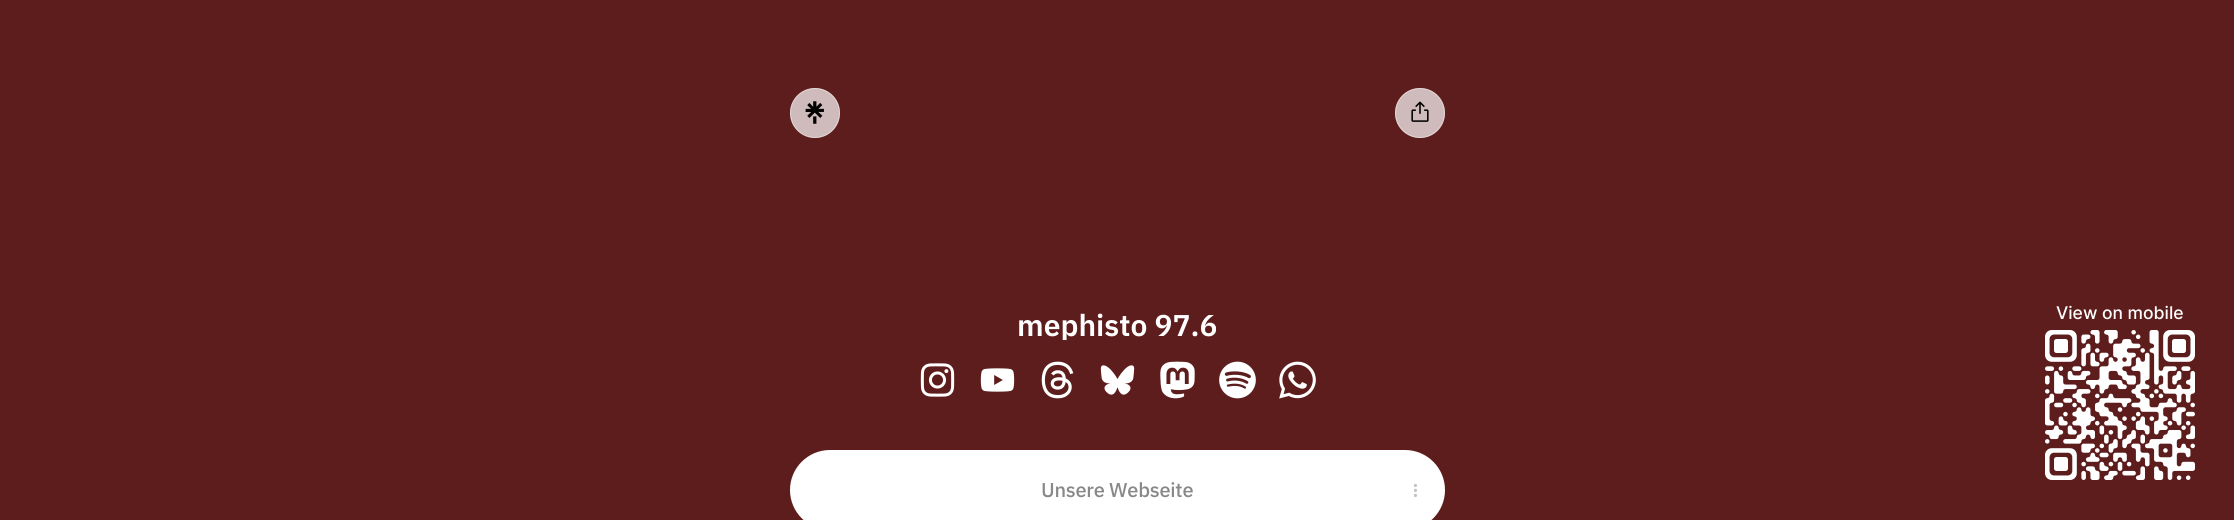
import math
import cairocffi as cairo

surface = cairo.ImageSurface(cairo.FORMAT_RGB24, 2234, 520)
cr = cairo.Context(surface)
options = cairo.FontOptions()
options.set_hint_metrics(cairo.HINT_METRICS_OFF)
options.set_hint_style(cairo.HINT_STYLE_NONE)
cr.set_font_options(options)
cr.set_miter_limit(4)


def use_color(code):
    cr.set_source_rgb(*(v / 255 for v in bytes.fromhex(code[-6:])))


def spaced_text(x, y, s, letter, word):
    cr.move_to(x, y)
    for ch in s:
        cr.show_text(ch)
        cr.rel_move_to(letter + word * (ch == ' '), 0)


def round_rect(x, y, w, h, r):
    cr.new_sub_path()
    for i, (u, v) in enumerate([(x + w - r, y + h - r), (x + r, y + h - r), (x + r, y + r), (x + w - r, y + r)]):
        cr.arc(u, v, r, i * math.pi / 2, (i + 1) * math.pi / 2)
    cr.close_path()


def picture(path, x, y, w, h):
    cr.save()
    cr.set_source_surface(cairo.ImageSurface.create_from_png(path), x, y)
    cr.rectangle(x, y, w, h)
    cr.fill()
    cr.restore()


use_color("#5e1d1d")
cr.paint()
use_color("#cfbbbb")
cr.arc(815, 113, 25, 0, 2 * math.pi)
cr.fill()
cr.arc(815, 113, 24.5, 0, 2 * math.pi)
cr.set_source_rgba(1, 1, 1, 0.4)
cr.set_line_width(1)
cr.stroke()
picture("img1.png", 805, 101, 19, 23)
use_color("#cfbbbb")
cr.arc(1420, 113, 25, 0, 2 * math.pi)
cr.fill()
cr.arc(1420, 113, 24.5, 0, 2 * math.pi)
cr.set_source_rgba(1, 1, 1, 0.4)
cr.stroke()
picture("img2.png", 1411, 101, 18, 21)
cr.save()
cr.new_path()
cr.move_to(785, 50)
cr.line_to(1450, 50)
cr.curve_to(1466.5, 50, 1480, 63.5, 1480, 80)
cr.line_to(1480, 340)
cr.line_to(755, 340)
cr.line_to(755, 80)
cr.curve_to(755, 63.5, 768.5, 50, 785, 50)
cr.close_path()
cr.clip()
cr.select_font_face("IBM Plex Sans SemiBold")
cr.set_font_size(30)
use_color("#ffffff")
cr.move_to(1017, 336)
cr.show_text("mephisto 97.6")
cr.restore()
picture("img3.png", 920, 363, 35, 34)
picture("img4.png", 980, 368, 35, 24)
picture("img5.png", 1041, 361, 33, 38)
picture("img6.png", 1100, 365, 35, 30)
picture("img7.png", 1160, 361, 35, 38)
picture("img8.png", 1219, 361, 37, 38)
picture("img9.png", 1279, 361, 37, 38)
use_color("#ffffff")
round_rect(790, 450, 655, 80, 40)
cr.fill()
cr.select_font_face("IBM Plex Sans Medium")
cr.set_font_size(20)
use_color("#888888")
spaced_text(1041, 497, "Unsere Webseite", -0.25, 0)
picture("img10.png", 1414, 484, 3, 13)
cr.select_font_face("Inter Medium")
cr.set_font_size(17.5)
use_color("#ffffff")
cr.move_to(2056, 319)
cr.show_text("View on mobile")
picture("img11.png", 2045, 330, 150, 150)
surface.write_to_png("result.png")
